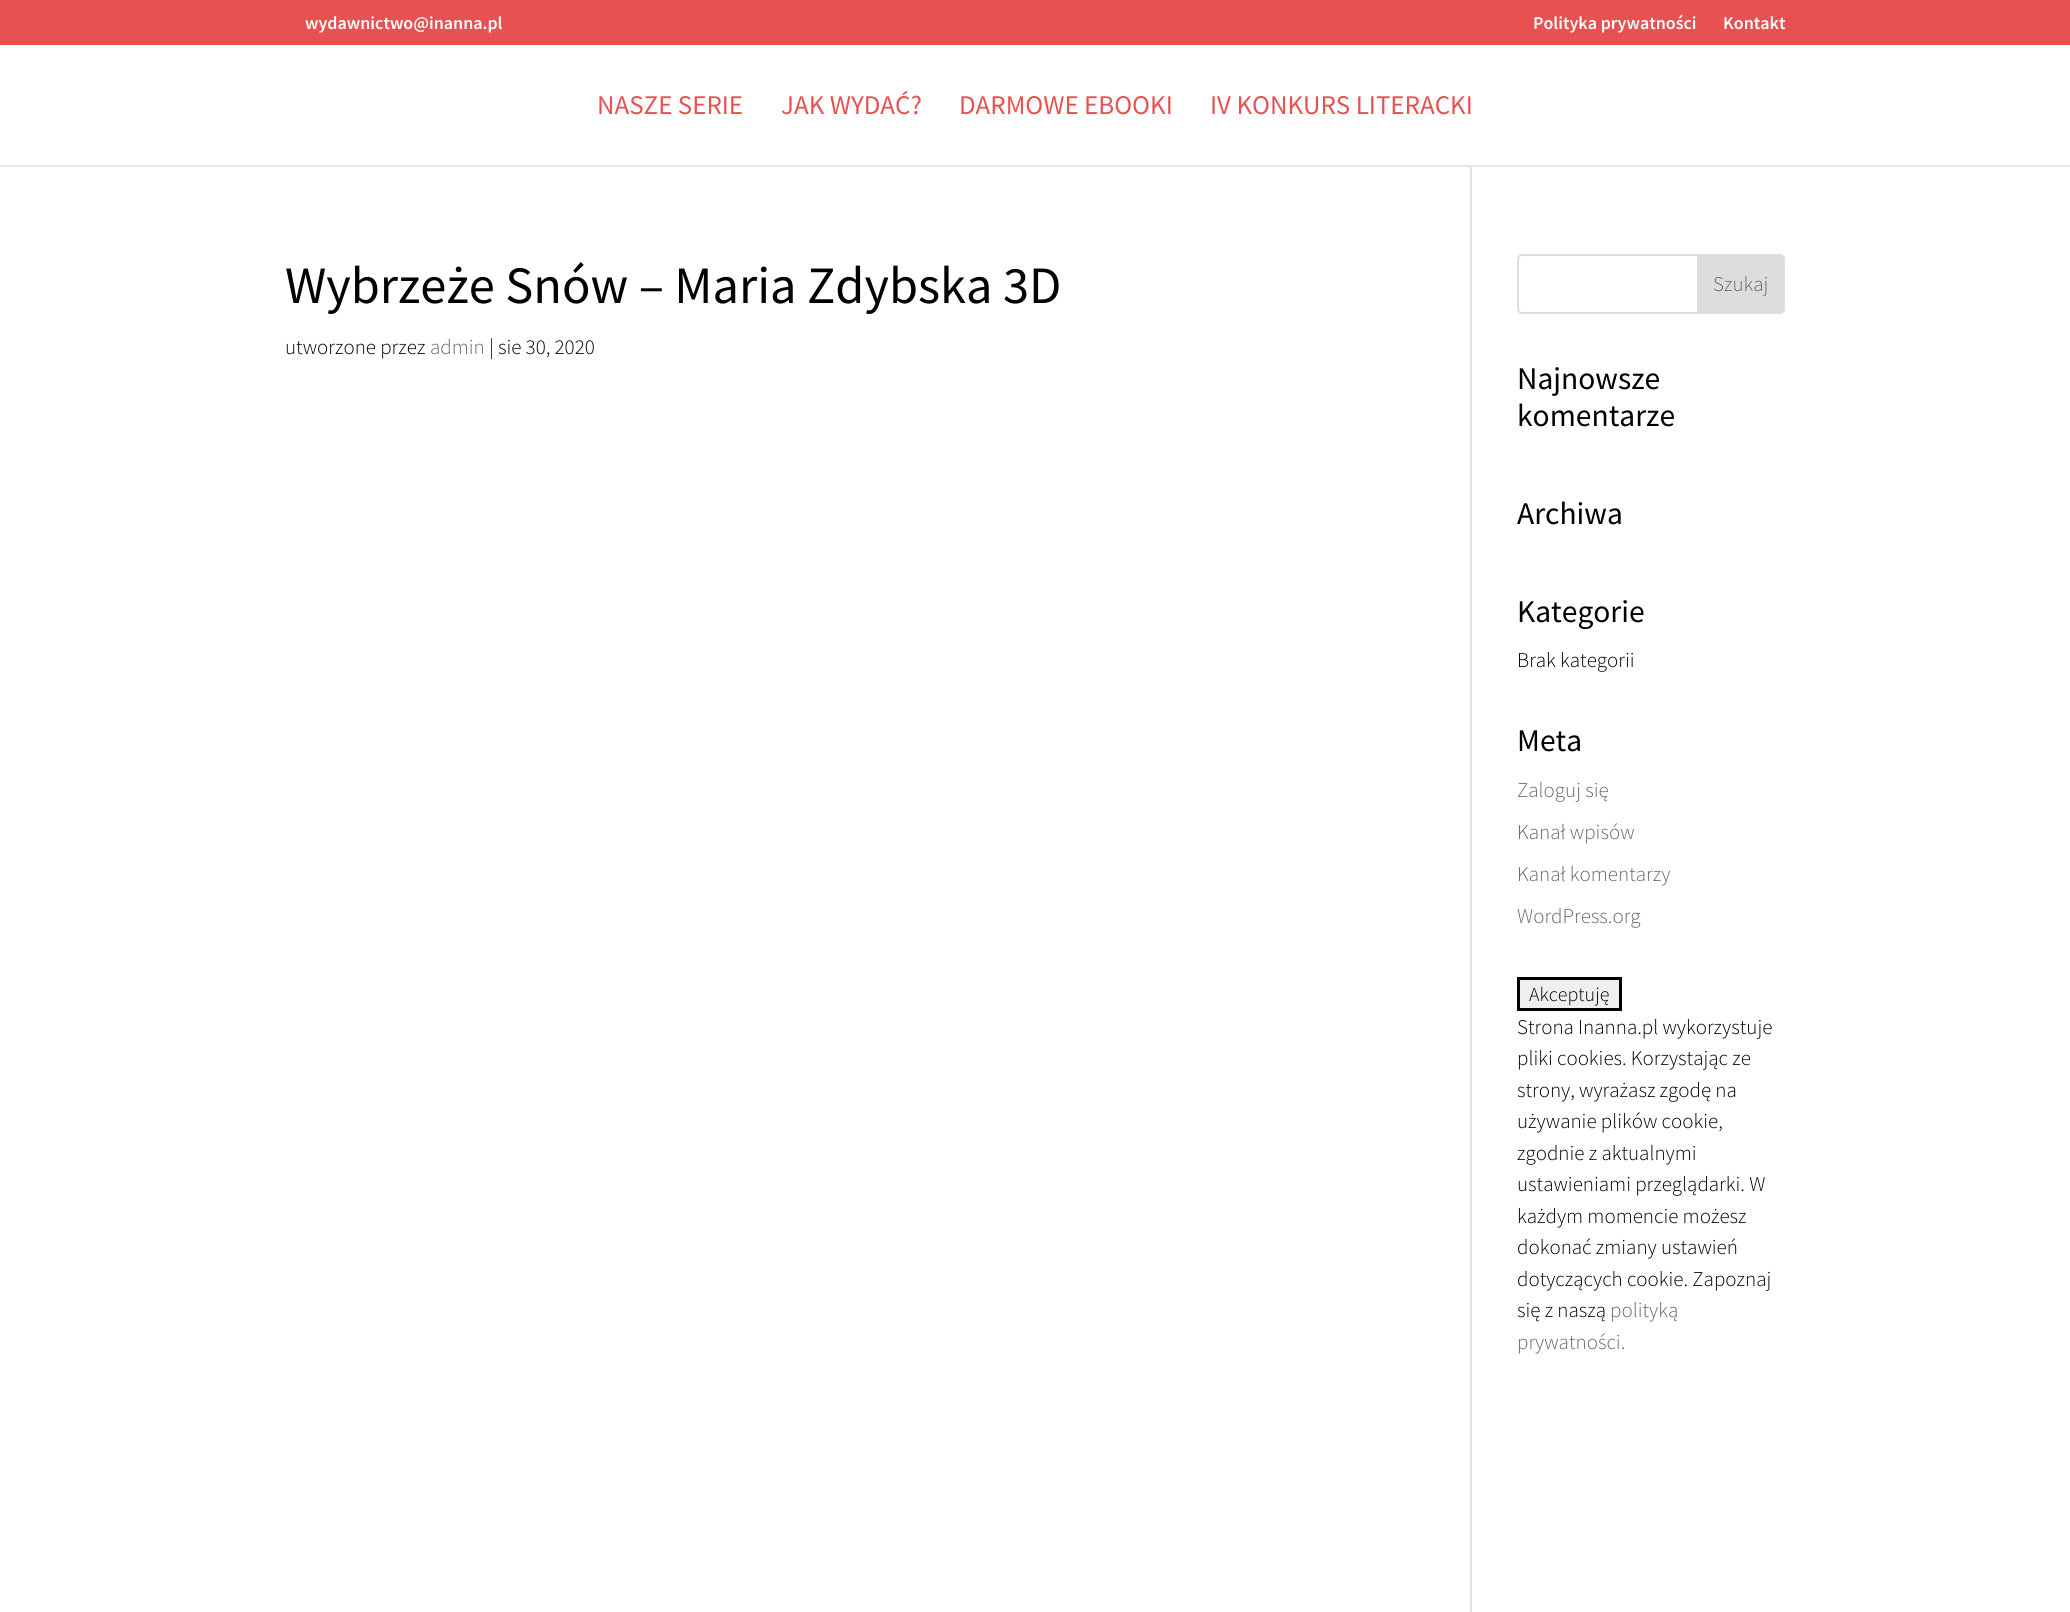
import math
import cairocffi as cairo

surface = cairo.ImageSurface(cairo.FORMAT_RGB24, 2070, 1612)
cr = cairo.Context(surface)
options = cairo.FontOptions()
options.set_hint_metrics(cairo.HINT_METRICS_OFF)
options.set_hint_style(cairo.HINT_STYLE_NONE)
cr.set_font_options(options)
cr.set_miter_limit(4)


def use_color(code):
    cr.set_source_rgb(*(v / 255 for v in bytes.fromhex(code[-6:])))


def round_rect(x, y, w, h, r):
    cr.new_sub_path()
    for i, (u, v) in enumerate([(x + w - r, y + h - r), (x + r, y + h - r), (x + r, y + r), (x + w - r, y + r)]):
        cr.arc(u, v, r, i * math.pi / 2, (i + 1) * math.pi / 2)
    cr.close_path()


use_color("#ffffff")
cr.paint()
use_color("#e75151")
cr.rectangle(0, 0, 2070, 45)
cr.fill()
cr.select_font_face("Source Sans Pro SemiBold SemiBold")
cr.set_font_size(18)
use_color("#ffffff")
cr.move_to(305, 29)
cr.show_text("wydawnictwo@inanna.pl")
cr.move_to(1533, 29)
cr.show_text("Polityka prywatności")
cr.move_to(1723, 29)
cr.show_text("Kontakt")
use_color("#e6e6e6")
cr.rectangle(0, 165, 2070, 2)
cr.fill()
cr.select_font_face("Source Sans Pro")
cr.set_font_size(27)
use_color("#e75151")
cr.move_to(597, 114)
cr.show_text("NASZE SERIE")
cr.move_to(781, 114)
cr.show_text("JAK WYDAĆ?")
cr.move_to(959, 114)
cr.show_text("DARMOWE EBOOKI")
cr.move_to(1210, 114)
cr.show_text("IV KONKURS LITERACKI")
use_color("#e2e2e2")
cr.rectangle(1470, 167, 2, 1445)
cr.fill()
cr.set_font_size(52.5)
use_color("#000000")
cr.move_to(285, 303)
cr.show_text("Wybrzeże Snów – Maria Zdybska 3D")
cr.select_font_face("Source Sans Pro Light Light")
cr.set_font_size(21)
cr.move_to(285, 354)
cr.show_text("utworzone przez")
use_color("#666666")
cr.move_to(430, 354)
cr.show_text("admin")
use_color("#000000")
cr.move_to(489, 354)
cr.show_text("| sie 30, 2020")
round_rect(1518, 255, 266, 58, 4)
use_color("#dddddd")
cr.stroke()
cr.new_path()
cr.move_to(1698, 255)
cr.line_to(1780, 255)
cr.curve_to(1782, 255, 1784, 257, 1784, 259)
cr.line_to(1784, 309)
cr.curve_to(1784, 311, 1782, 313, 1780, 313)
cr.line_to(1698, 313)
cr.close_path()
cr.fill_preserve()
cr.stroke()
use_color("#666666")
cr.move_to(1713, 291)
cr.show_text("Szukaj")
cr.select_font_face("Source Sans Pro")
cr.set_font_size(31.5)
use_color("#000000")
cr.move_to(1517, 389)
cr.show_text("Najnowsze")
cr.move_to(1517, 426)
cr.show_text("komentarze")
cr.move_to(1517, 524)
cr.show_text("Archiwa")
cr.move_to(1517, 622)
cr.show_text("Kategorie")
cr.select_font_face("Source Sans Pro Light Light")
cr.set_font_size(21)
cr.move_to(1517, 667)
cr.show_text("Brak kategorii")
cr.select_font_face("Source Sans Pro")
cr.set_font_size(31.5)
cr.move_to(1517, 751)
cr.show_text("Meta")
cr.select_font_face("Source Sans Pro Light Light")
cr.set_font_size(21)
use_color("#666666")
cr.move_to(1517, 797)
cr.show_text("Zaloguj się")
cr.move_to(1517, 839)
cr.show_text("Kanał wpisów")
cr.move_to(1517, 881)
cr.show_text("Kanał komentarzy")
cr.move_to(1517, 923)
cr.show_text("WordPress.org")
use_color("#efefef")
cr.rectangle(1518.5, 978.5, 102, 31)
cr.fill_preserve()
use_color("#000000")
cr.set_line_width(3)
cr.stroke()
cr.set_font_size(20)
cr.move_to(1529, 1001)
cr.show_text("Akceptuję")
cr.set_font_size(21)
cr.move_to(1517, 1034)
cr.show_text("Strona Inanna.pl wykorzystuje")
cr.move_to(1517, 1065)
cr.show_text("pliki cookies. Korzystając ze")
cr.move_to(1517, 1097)
cr.show_text("strony, wyrażasz zgodę na")
cr.move_to(1517, 1128)
cr.show_text("używanie plików cookie,")
cr.move_to(1517, 1160)
cr.show_text("zgodnie z aktualnymi")
cr.move_to(1517, 1191)
cr.show_text("ustawieniami przeglądarki. W")
cr.move_to(1517, 1223)
cr.show_text("każdym momencie możesz")
cr.move_to(1517, 1254)
cr.show_text("dokonać zmiany ustawień")
cr.move_to(1517, 1286)
cr.show_text("dotyczących cookie. Zapoznaj")
cr.move_to(1517, 1317)
cr.show_text("się z naszą")
use_color("#666666")
cr.move_to(1610, 1317)
cr.show_text("polityką")
cr.move_to(1517, 1349)
cr.show_text("prywatności.")
surface.write_to_png("result.png")
